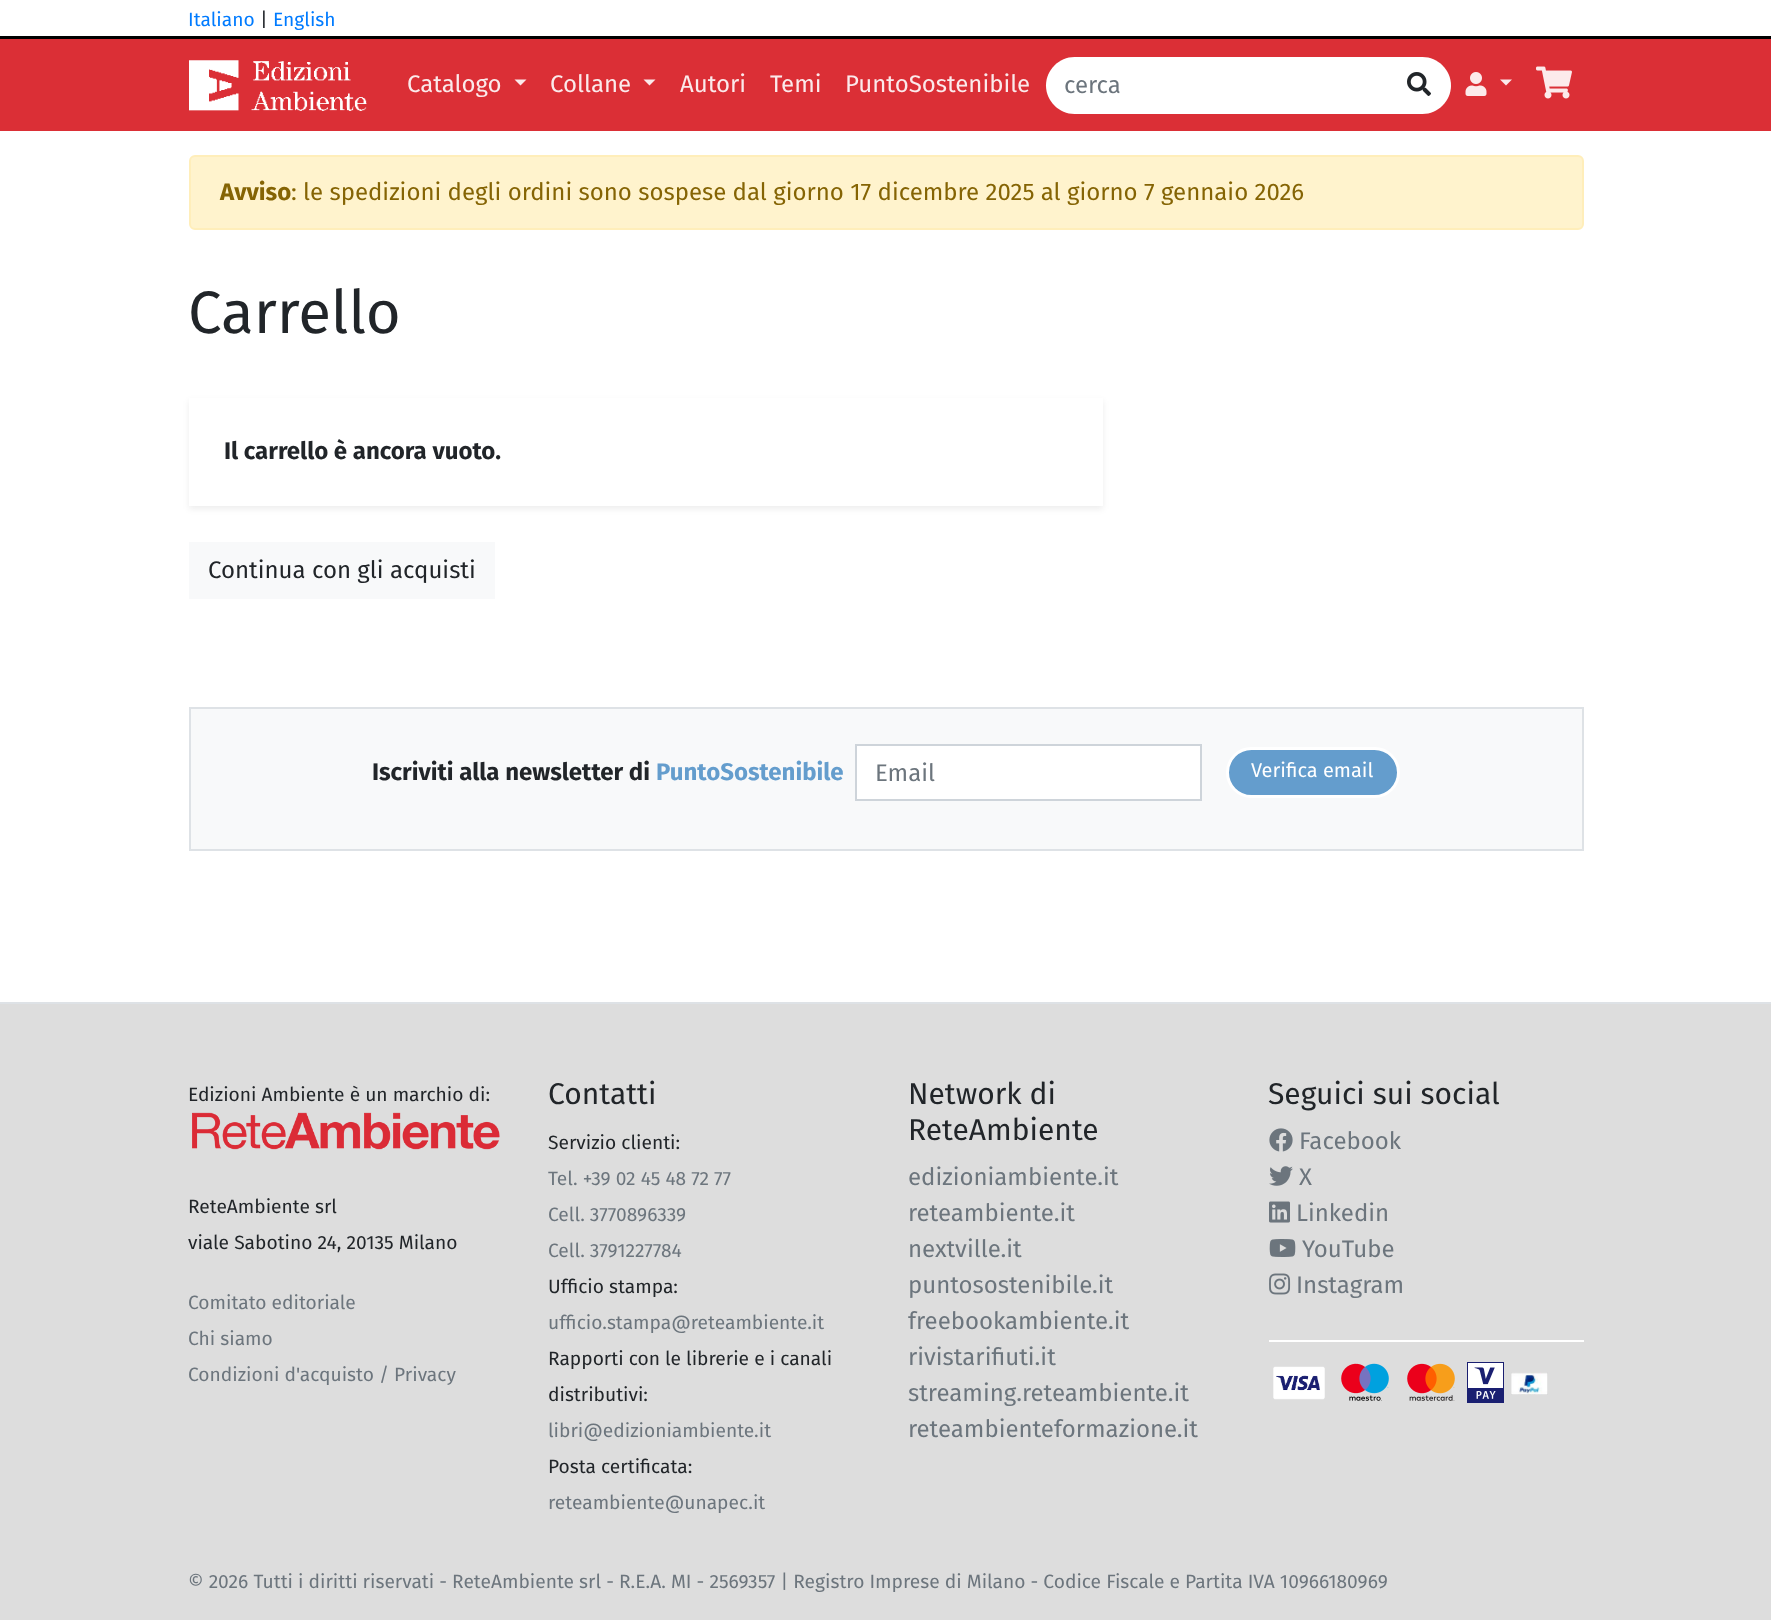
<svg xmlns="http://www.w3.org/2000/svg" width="1771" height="1620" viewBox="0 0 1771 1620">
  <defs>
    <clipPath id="clip1"><path d="M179 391H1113V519H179ZM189 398H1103V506H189Z" clip-rule="evenodd"/></clipPath>
  </defs>
  <rect width="100%" height="100%" fill="rgb(255,255,255)"/>
  <rect x="0" y="36" width="1771" height="3" fill="rgb(0,0,0)"/>
  <text x="188" y="26" font-family="Fira Sans" font-size="19.2" fill="rgb(0,123,255)">Italiano</text>
  <text x="260" y="26" font-family="Fira Sans" font-size="19.2" fill="rgb(33,37,41)">|</text>
  <text x="273" y="26" font-family="Fira Sans" font-size="19.2" fill="rgb(0,123,255)">English</text>
  <rect x="0" y="39" width="1771" height="92" fill="rgb(219,47,54)"/>
  <image x="189" y="60" width="178" height="51" href="pic1.png"/>
  <text x="407" y="92" font-family="Fira Sans" font-size="24" fill="rgb(251,234,235)">Catalogo</text>
  <path d="M514.5 79.5H526.5L520.5 85.5Z" fill="rgb(251,234,235)"/>
  <text x="550" y="92" font-family="Fira Sans" font-size="24" fill="rgb(251,234,235)">Collane</text>
  <path d="M643.5 79.5H655.5L649.5 85.5Z" fill="rgb(251,234,235)"/>
  <g font-family="Fira Sans" font-size="24" fill="rgb(251,234,235)">
    <text x="680" y="92">Autori</text>
    <text x="770" y="92">Temi</text>
    <text x="845" y="92">PuntoSostenibile</text>
  </g>
  <path d="M1074.5 57H1389V114H1074.5C1059 114 1046 101 1046 85.5C1046 70 1059 57 1074.5 57Z" fill="rgb(255,255,255)"/>
  <text x="1064" y="93" font-family="Fira Sans" font-size="24" fill="rgb(108,117,125)">cerca</text>
  <path d="M1388 57H1422.5C1438 57 1451 70 1451 85.5C1451 101 1438 114 1422.5 114H1388Z" fill="rgb(255,255,255)"/>
  <image x="1407" y="72" width="24" height="24" href="pic2.png"/>
  <image x="1465" y="72" width="22" height="24" href="pic3.png"/>
  <path d="M1500 79.5H1512L1506 85.5Z" fill="rgb(251,234,235)"/>
  <image x="1536" y="66" width="36" height="33" href="pic4.png"/>
  <rect x="190" y="156" width="1393" height="73" rx="5" fill="rgb(255,243,205)" stroke="rgb(255,238,186)" stroke-width="2"/>
  <text x="220" y="200" font-family="Fira Sans" font-size="24" font-weight="bold" fill="rgb(133,100,4)">Avviso</text>
  <text x="291" y="200" font-family="Fira Sans" font-size="24" fill="rgb(133,100,4)">: le spedizioni degli ordini sono sospese dal giorno 17 dicembre 2025 al giorno 7 gennaio 2026</text>
  <text x="188" y="333" font-family="Fira Sans" font-size="60" fill="rgb(33,37,41)">Carrello</text>
  <g clip-path="url(#clip1)">
    <rect x="189" y="401" width="914" height="108" fill="rgba(0,0,0,0.07)" filter="blur(3px)"/>
  </g>
  <text x="224" y="459" font-family="Fira Sans" font-size="24" font-weight="bold" fill="rgb(33,37,41)">Il carrello è ancora vuoto.</text>
  <rect x="189" y="542" width="306" height="57" fill="rgb(248,249,250)"/>
  <text x="208" y="578" font-family="Fira Sans" font-size="24" fill="rgb(33,37,41)">Continua con gli acquisti</text>
  <rect x="190" y="708" width="1393" height="142" fill="rgb(248,249,250)" stroke="rgb(222,226,230)" stroke-width="2"/>
  <text x="372" y="780" font-family="Fira Sans" font-size="24" font-weight="bold" fill="rgb(33,37,41)">Iscriviti alla newsletter di</text>
  <text x="656" y="780" font-family="Fira Sans" font-size="24" font-weight="bold" fill="rgb(100,157,205)">PuntoSostenibile</text>
  <rect x="856" y="745" width="345" height="55" fill="rgb(255,255,255)" stroke="rgb(206,212,218)" stroke-width="2"/>
  <text x="875" y="781" font-family="Fira Sans" font-size="24" fill="rgb(108,117,125)">Email</text>
  <rect x="1227.5" y="748.5" width="171" height="48" rx="24" fill="rgb(100,157,205)" stroke="rgb(255,255,255)" stroke-width="3"/>
  <text x="1251" y="777" font-family="Fira Sans" font-size="20" fill="rgb(255,255,255)">Verifica email</text>
  <rect x="0" y="1004" width="1771" height="616" fill="rgb(221,221,221)"/>
  <rect x="0" y="1002" width="1771" height="2" fill="rgb(222,226,230)"/>
  <text x="188" y="1101" font-family="Fira Sans" font-size="19.2" fill="rgb(33,37,41)">Edizioni Ambiente è un marchio di:</text>
  <image x="192" y="1112" width="308" height="38" href="pic5.png"/>
  <g font-family="Fira Sans" font-size="19.2" fill="rgb(33,37,41)">
    <text>
      <tspan x="188" y="1213">ReteAmbiente srl</tspan>
      <tspan x="188" y="1249">viale Sabotino 24, 20135 Milano</tspan>
    </text>
  </g>
  <g font-family="Fira Sans" font-size="19.2" fill="rgb(108,117,125)">
    <text>
      <tspan x="188" y="1309">Comitato editoriale</tspan>
      <tspan x="188" y="1345">Chi siamo</tspan>
      <tspan x="188" y="1381">Condizioni d'acquisto / Privacy</tspan>
    </text>
  </g>
  <text x="548" y="1104" font-family="Fira Sans" font-size="30" fill="rgb(33,37,41)">Contatti</text>
  <text x="548" y="1149" font-family="Fira Sans" font-size="19.2" fill="rgb(33,37,41)">Servizio clienti:</text>
  <g font-family="Fira Sans" font-size="19.2" fill="rgb(108,117,125)">
    <text>
      <tspan x="548" y="1185">Tel. +39 02 45 48 72 77</tspan>
      <tspan x="548" y="1221">Cell. 3770896339</tspan>
      <tspan x="548" y="1257">Cell. 3791227784</tspan>
    </text>
  </g>
  <text x="548" y="1293" font-family="Fira Sans" font-size="19.2" fill="rgb(33,37,41)">Ufficio stampa:</text>
  <text x="548" y="1329" font-family="Fira Sans" font-size="19.2" fill="rgb(108,117,125)">ufficio.stampa@reteambiente.it</text>
  <g font-family="Fira Sans" font-size="19.2" fill="rgb(33,37,41)">
    <text>
      <tspan x="548" y="1365">Rapporti con le librerie e i canali</tspan>
      <tspan x="548" y="1401">distributivi:</tspan>
    </text>
  </g>
  <text x="548" y="1437" font-family="Fira Sans" font-size="19.2" fill="rgb(108,117,125)">libri@edizioniambiente.it</text>
  <text x="548" y="1473" font-family="Fira Sans" font-size="19.2" fill="rgb(33,37,41)">Posta certificata:</text>
  <text x="548" y="1509" font-family="Fira Sans" font-size="19.2" fill="rgb(108,117,125)">reteambiente@unapec.it</text>
  <g font-family="Fira Sans" font-size="30" fill="rgb(33,37,41)">
    <text>
      <tspan x="908" y="1104">Network di</tspan>
      <tspan x="908" y="1140">ReteAmbiente</tspan>
    </text>
  </g>
  <g font-family="Fira Sans" font-size="24" fill="rgb(108,117,125)">
    <text>
      <tspan x="908" y="1185">edizioniambiente.it</tspan>
      <tspan x="908" y="1221">reteambiente.it</tspan>
      <tspan x="908" y="1257">nextville.it</tspan>
      <tspan x="908" y="1293">puntosostenibile.it</tspan>
      <tspan x="908" y="1329">freebookambiente.it</tspan>
      <tspan x="908" y="1365">rivistarifiuti.it</tspan>
      <tspan x="908" y="1401">streaming.reteambiente.it</tspan>
      <tspan x="908" y="1437">reteambienteformazione.it</tspan>
    </text>
  </g>
  <text x="1268" y="1104" font-family="Fira Sans" font-size="30" fill="rgb(33,37,41)">Seguici sui social</text>
  <image x="1269" y="1128" width="24" height="24" href="pic6.png"/>
  <text x="1299" y="1149" font-family="Fira Sans" font-size="24" fill="rgb(108,117,125)">Facebook</text>
  <image x="1269" y="1166" width="24" height="20" href="pic7.png"/>
  <text x="1299" y="1185" font-family="Fira Sans" font-size="24" fill="rgb(108,117,125)">X</text>
  <image x="1269" y="1201" width="21" height="22" href="pic8.png"/>
  <text x="1296" y="1221" font-family="Fira Sans" font-size="24" fill="rgb(108,117,125)">Linkedin</text>
  <image x="1269" y="1239" width="27" height="18" href="pic9.png"/>
  <text x="1302" y="1257" font-family="Fira Sans" font-size="24" fill="rgb(108,117,125)">YouTube</text>
  <image x="1269" y="1273" width="22" height="22" href="pic10.png"/>
  <text x="1296" y="1293" font-family="Fira Sans" font-size="24" fill="rgb(108,117,125)">Instagram</text>
  <rect x="1269" y="1340" width="315" height="2" fill="rgb(255,255,255)"/>
  <image x="1273" y="1366" width="52" height="34" href="pic11.png"/>
  <image x="1341" y="1363" width="48" height="38" href="pic12.png"/>
  <image x="1407" y="1363" width="48" height="38" href="pic13.png"/>
  <image x="1467" y="1362" width="37" height="41" href="pic14.png"/>
  <image x="1511" y="1372" width="37" height="23" href="pic15.png"/>
  <text x="188" y="1588" font-family="Fira Sans" font-size="19.2" fill="rgb(108,117,125)">© 2026 Tutti i diritti riservati - ReteAmbiente srl - R.E.A. MI - 2569357 | Registro Imprese di Milano - Codice Fiscale e Partita IVA 10966180969</text>
</svg>
